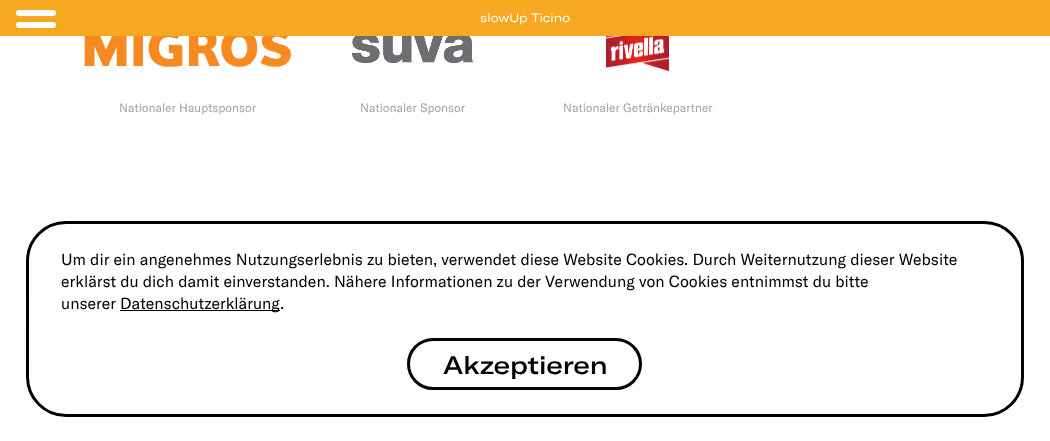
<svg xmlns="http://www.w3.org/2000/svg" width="1050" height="441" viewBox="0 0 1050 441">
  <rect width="100%" height="100%" fill="rgb(255,255,255)"/>
  <rect x="0" y="0" width="1050" height="36" fill="rgb(247,168,35)"/>
  <rect x="16" y="10" width="40" height="6" rx="3" fill="rgb(255,255,255)"/>
  <rect x="16" y="22" width="40" height="6" rx="3" fill="rgb(255,255,255)"/>
  <text x="480" y="22" font-family="'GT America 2'" font-size="12" fill="rgb(255,255,255)">slowUp Ticino</text>
  <image x="84" y="36" width="208" height="31" href="pic1.png"/>
  <text x="119" y="112" font-family="GT America" font-size="12" fill="rgb(163,163,163)">Nationaler Hauptsponsor</text>
  <image x="352" y="36" width="121" height="27" href="pic2.png"/>
  <text x="360" y="112" font-family="GT America" font-size="12" fill="rgb(163,163,163)">Nationaler Sponsor</text>
  <image x="606" y="36" width="63" height="35" href="pic3.png"/>
  <text x="563" y="112" font-family="GT America" font-size="12" fill="rgb(163,163,163)">Nationaler Getränkepartner</text>
  <rect x="27.5" y="222.5" width="995" height="193" rx="38.5" fill="none" stroke="rgb(0,0,0)" stroke-width="3"/>
  <g font-family="GT America" font-size="16" fill="rgb(0,0,0)">
    <text>
      <tspan x="61" y="265">Um dir ein angenehmes Nutzungserlebnis zu bieten, verwendet diese Website Cookies. Durch Weiternutzung dieser Website</tspan>
      <tspan x="61" y="287">erklärst du dich damit einverstanden. Nähere Informationen zu der Verwendung von Cookies entnimmst du bitte</tspan>
      <tspan x="61" y="309">unserer</tspan>
    </text>
  </g>
  <rect x="120" y="310" width="160" height="1" fill="rgb(0,0,0)"/>
  <text x="120" y="309" font-family="GT America" font-size="16" fill="rgb(0,0,0)">Datenschutzerklärung.</text>
  <rect x="408.5" y="339.5" width="232" height="49" rx="24.5" fill="none" stroke="rgb(0,0,0)" stroke-width="3"/>
  <text x="443" y="374" font-family="GT America" font-size="25" font-weight="500" fill="rgb(0,0,0)">Akzeptieren</text>
</svg>
